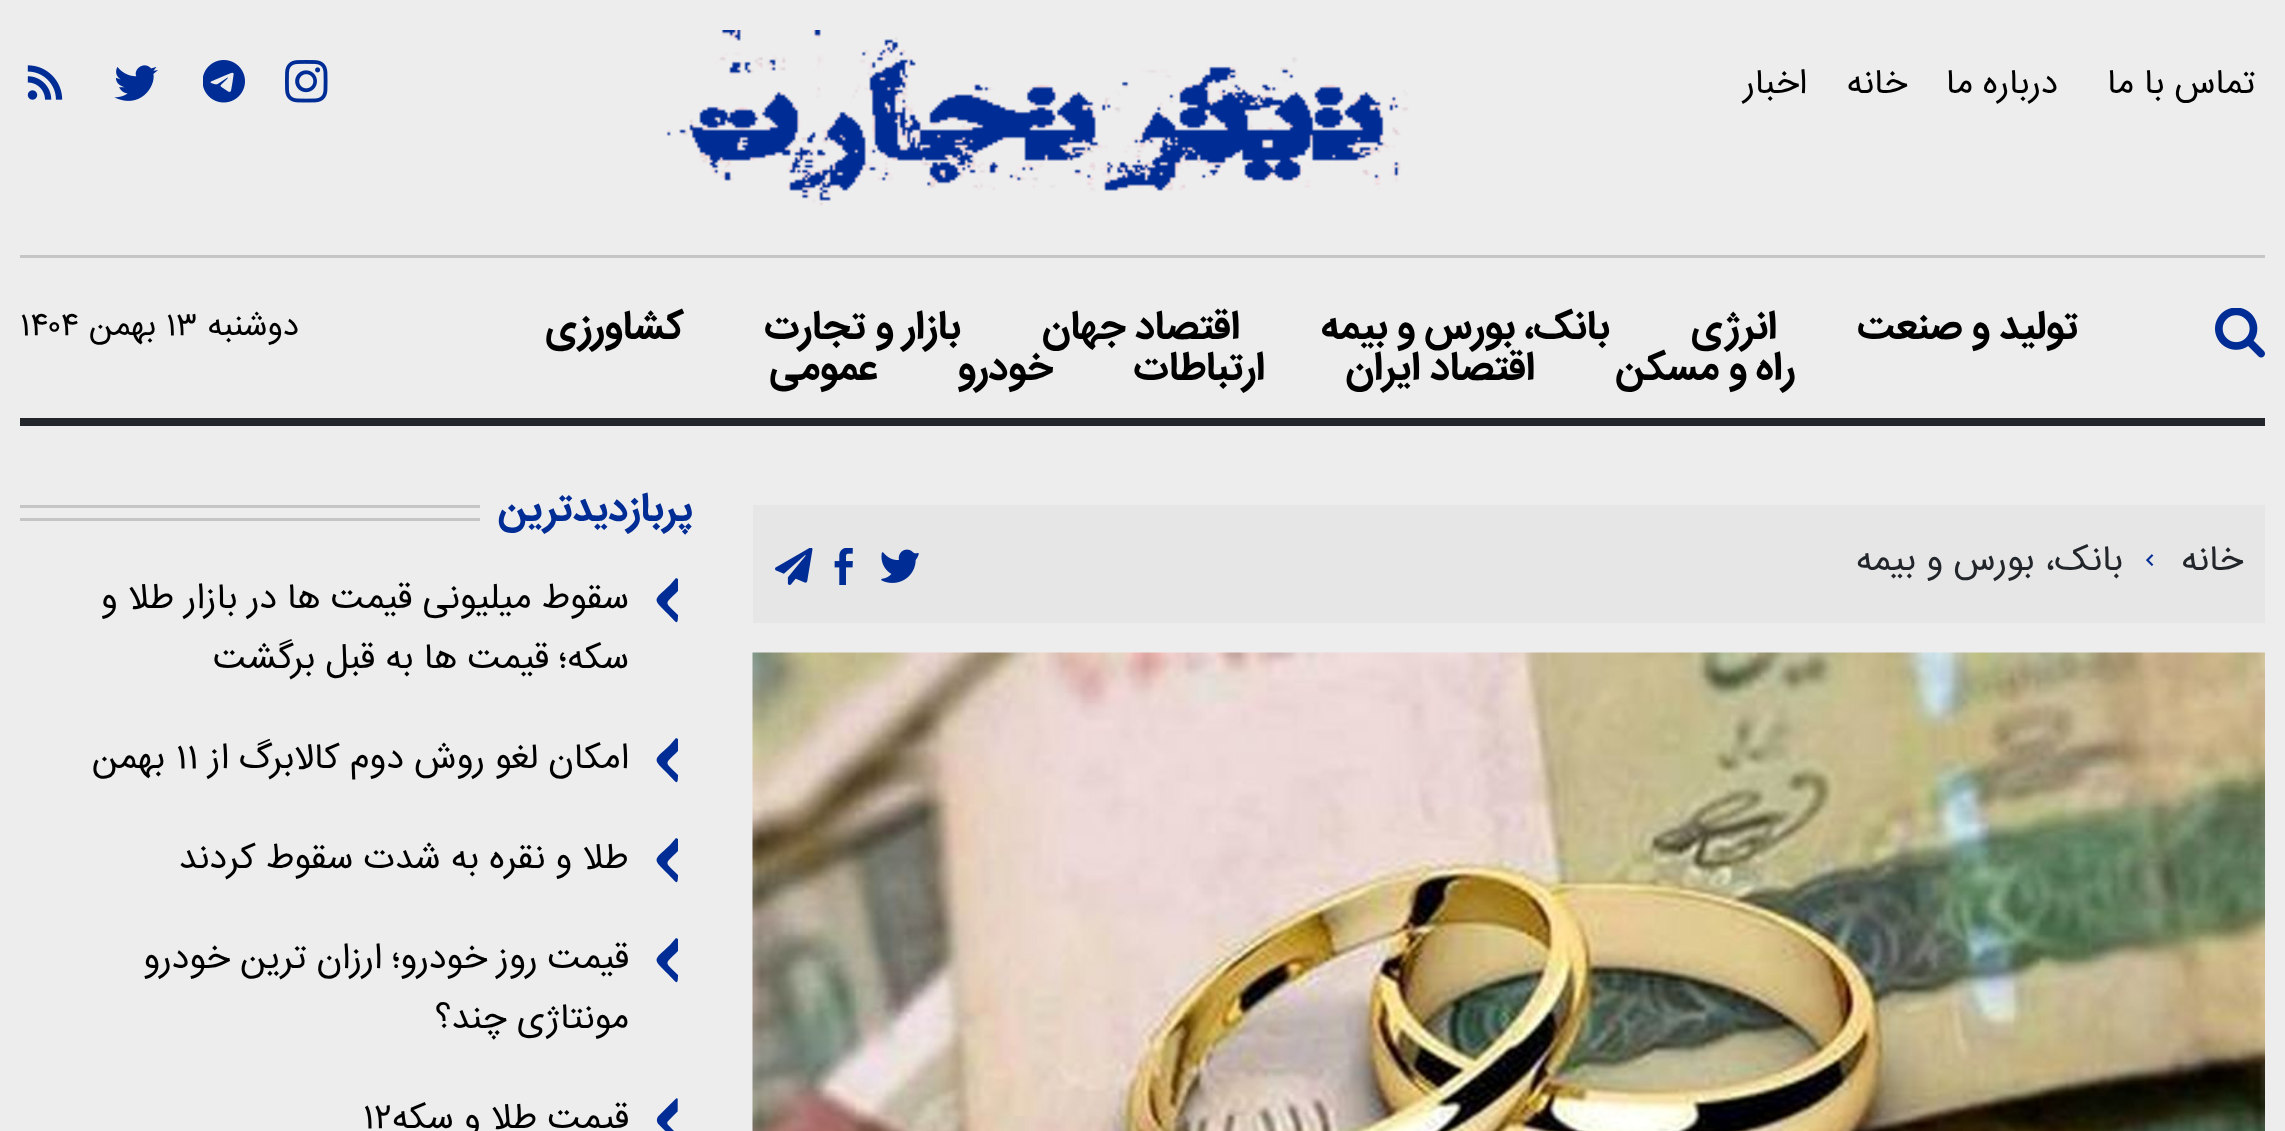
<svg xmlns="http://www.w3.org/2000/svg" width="2285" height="1131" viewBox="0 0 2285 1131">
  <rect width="100%" height="100%" fill="rgb(238,237,238)"/>
  <rect x="20" y="255" width="2245" height="3" fill="rgb(197,197,197)"/>
  <g font-family="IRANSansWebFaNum" font-size="35" direction="rtl" fill="rgb(0,0,0)">
    <text x="2255" y="93">تماس با ما</text>
    <text x="2058" y="93">درباره ما</text>
    <text x="1907" y="93">خانه</text>
    <text x="1807" y="93">اخبار</text>
  </g>
  <image x="666" y="30" width="743" height="176" href="pic1.png"/>
  <image x="285" y="60" width="43" height="43" href="pic2.png"/>
  <image x="203" y="60" width="42" height="43" href="pic3.png"/>
  <image x="114" y="65" width="44" height="36" href="pic4.png"/>
  <image x="27" y="65" width="36" height="35" href="pic5.png"/>
  <rect x="20" y="418" width="2245" height="8" fill="rgb(34,38,43)"/>
  <image x="2215" y="308" width="50" height="50" href="pic6.png"/>
  <g font-family="IRANSansWebFaNum" font-size="40" font-weight="bold" direction="rtl" fill="rgb(0,0,0)">
    <text x="2078" y="338">تولید و صنعت</text>
    <text x="1777" y="338">انرژی</text>
    <text x="1610" y="338">بانک، بورس و</text>
    <text x="1388" y="338">بیمه</text>
    <text x="1240" y="338">اقتصاد جهان</text>
    <text x="961" y="338">بازار و تجارت</text>
    <text x="684" y="338">کشاورزی</text>
    <text x="1795" y="379">راه و مسکن</text>
    <text x="1535" y="379">اقتصاد ایران</text>
    <text x="1265" y="379">ارتباطات</text>
    <text x="1053" y="379">خودرو</text>
    <text x="877" y="379">عمومی</text>
  </g>
  <text x="299" y="335" font-family="IRANSansWebFaNum" font-size="33" direction="rtl" fill="rgb(0,0,0)">دوشنبه</text>
  <text x="166" y="335" font-family="IRANSansWebFaNum" font-size="33" fill="rgb(0,0,0)">۱۳</text>
  <text x="156" y="335" font-family="IRANSansWebFaNum" font-size="33" direction="rtl" fill="rgb(0,0,0)">بهمن</text>
  <text x="20" y="335" font-family="IRANSansWebFaNum" font-size="33" fill="rgb(0,0,0)">۱۴۰۴</text>
  <rect x="753" y="505" width="1512" height="118" fill="rgb(230,230,230)"/>
  <text x="2243" y="570" font-family="IRANSansWebFaNum" font-size="36" direction="rtl" fill="rgb(34,38,43)">خانه</text>
  <image x="2146" y="554" width="8" height="12" href="pic7.png"/>
  <g font-family="IRANSansWebFaNum" font-size="36" direction="rtl" fill="rgb(34,38,43)">
    <text x="2123" y="570">بانک، بورس و</text>
    <text x="1916" y="570">بیمه</text>
  </g>
  <image x="881" y="549" width="38" height="34" href="pic8.png"/>
  <image x="834" y="548" width="19" height="37" href="pic9.png"/>
  <image x="775" y="548" width="38" height="37" href="pic10.png"/>
  <image x="752" y="652" width="1513" height="479" href="pic11.png"/>
  <text x="693" y="520" font-family="IRANSansWebFaNum" font-size="40" font-weight="bold" direction="rtl" fill="rgb(0,44,149)">پربازدیدترین</text>
  <rect x="20" y="505" width="460" height="3" fill="rgb(197,197,197)"/>
  <rect x="20" y="518" width="460" height="3" fill="rgb(197,197,197)"/>
  <path d="M670 585C653 601 652 598 668 614C676 622 678 627 678 615C664 601 664 605 678 591V579L676 578Z" fill="rgb(0,44,149)"/>
  <g font-family="IRANSansWebFaNum" font-size="36" direction="rtl" fill="rgb(0,0,0)">
    <text>
      <tspan x="629" y="608">سقوط میلیونی قیمت ها در بازار طلا و</tspan>
      <tspan x="629" y="668">سکه؛ قیمت ها به قبل برگشت</tspan>
    </text>
  </g>
  <path d="M670 745C653 761 652 758 668 774C676 782 678 787 678 775C664 761 664 765 678 751V739L676 738Z" fill="rgb(0,44,149)"/>
  <text x="629" y="768" font-family="IRANSansWebFaNum" font-size="36" direction="rtl" fill="rgb(0,0,0)">امکان لغو روش دوم کالابرگ از</text>
  <text x="176" y="768" font-family="IRANSansWebFaNum" font-size="36" fill="rgb(0,0,0)">۱۱</text>
  <text x="165" y="768" font-family="IRANSansWebFaNum" font-size="36" direction="rtl" fill="rgb(0,0,0)">بهمن</text>
  <path d="M670 845C653 861 652 858 668 874C676 882 678 887 678 875C664 861 664 865 678 851V839L676 838Z" fill="rgb(0,44,149)"/>
  <text x="629" y="868" font-family="IRANSansWebFaNum" font-size="36" direction="rtl" fill="rgb(0,0,0)">طلا و نقره به شدت سقوط کردند</text>
  <path d="M670 945C653 961 652 958 668 974C676 982 678 987 678 975C664 961 664 965 678 951V939L676 938Z" fill="rgb(0,44,149)"/>
  <g font-family="IRANSansWebFaNum" font-size="36" direction="rtl" fill="rgb(0,0,0)">
    <text>
      <tspan x="629" y="968">قیمت روز خودرو؛ ارزان ترین خودرو</tspan>
      <tspan x="629" y="1028">مونتاژی چند؟</tspan>
    </text>
  </g>
  <image x="656" y="1098" width="22" height="33" href="pic12.png"/>
  <text x="629" y="1128" font-family="IRANSansWebFaNum" font-size="36" direction="rtl" fill="rgb(0,0,0)">قیمت طلا و سکه</text>
  <text x="363" y="1128" font-family="IRANSansWebFaNum" font-size="36" fill="rgb(0,0,0)">۱۲</text>
</svg>
